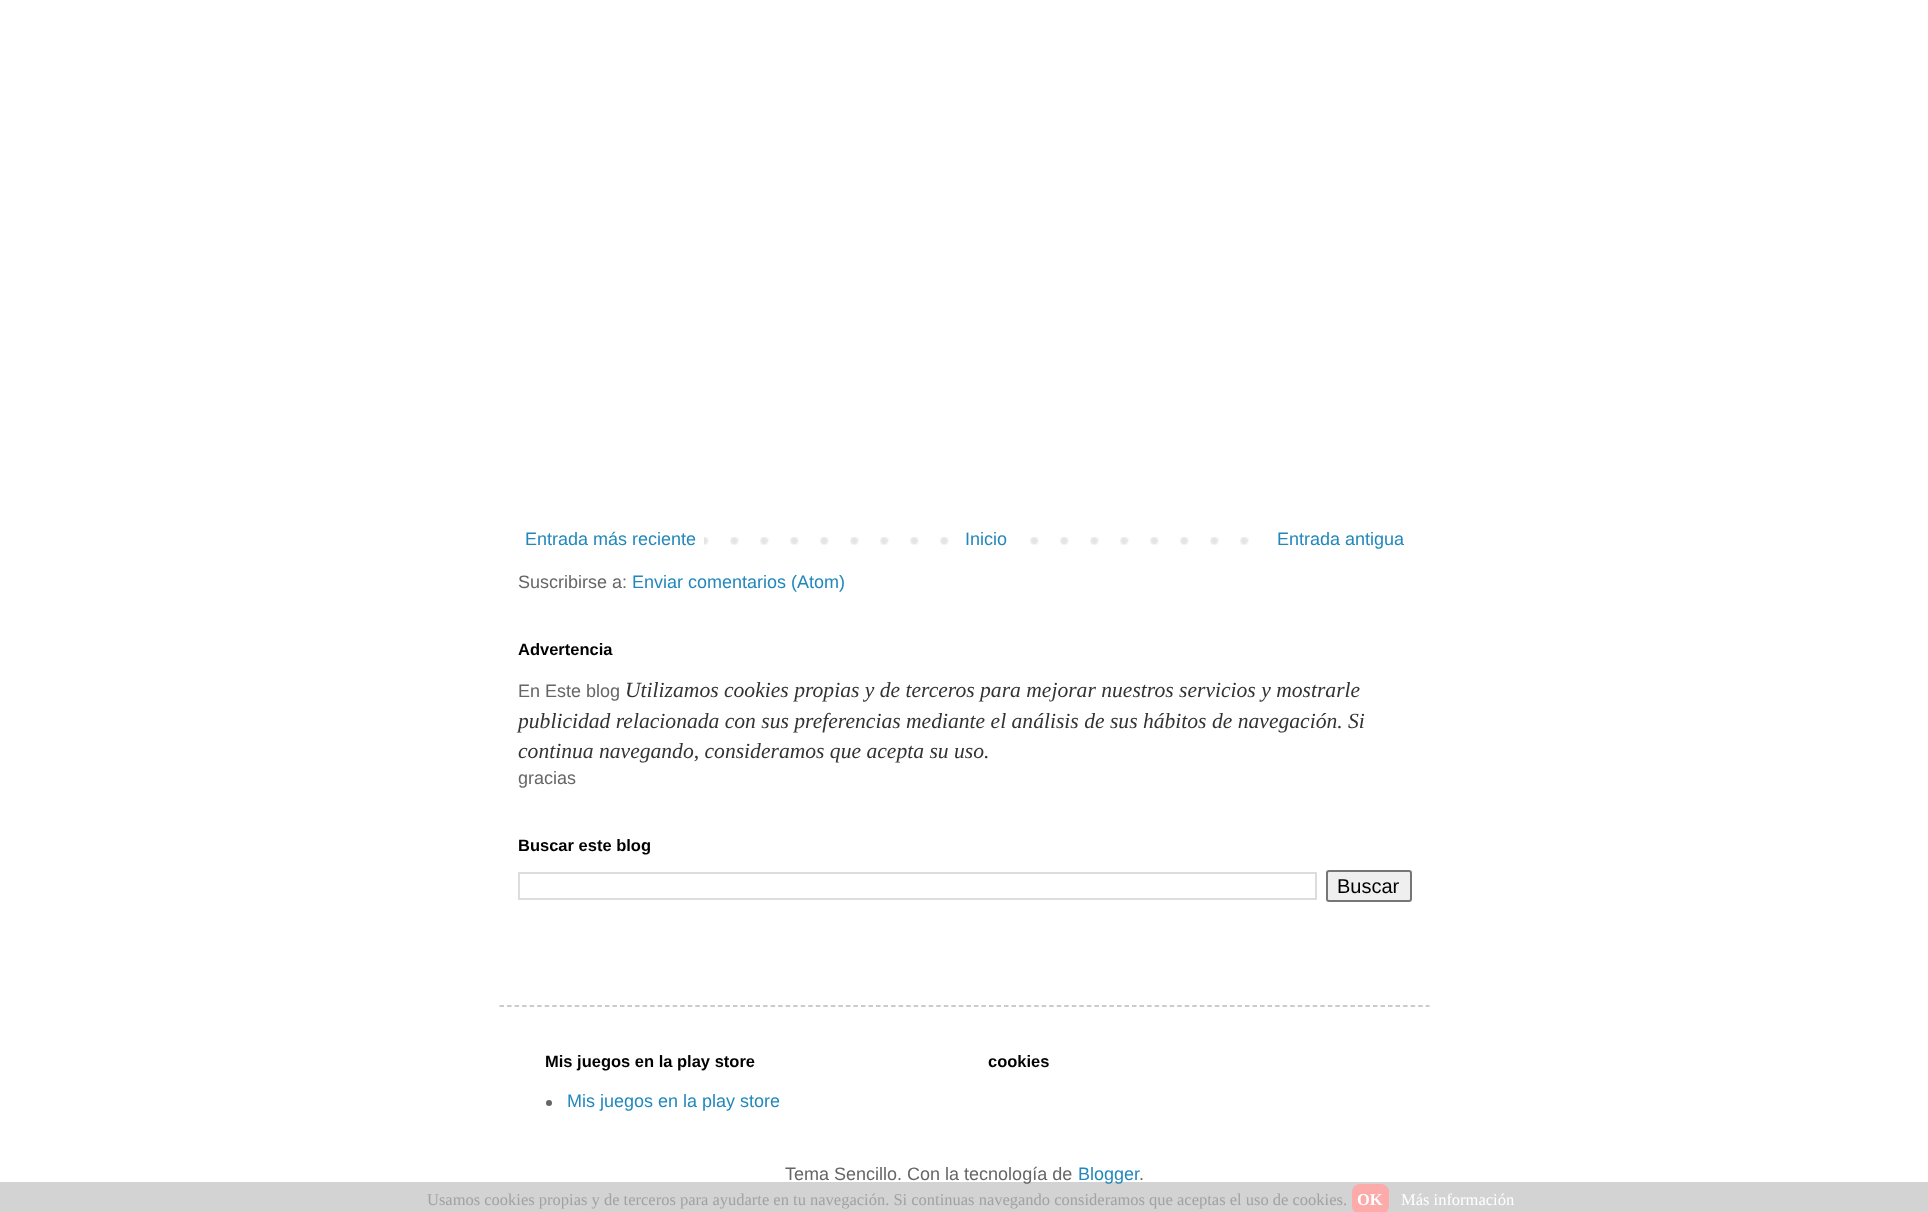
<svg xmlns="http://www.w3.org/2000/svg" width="1928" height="1212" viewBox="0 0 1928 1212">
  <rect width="100%" height="100%" fill="rgb(255,255,255)"/>
  <image x="704" y="537" width="545" height="8" href="pic1.png"/>
  <text x="525" y="545" font-family="Liberation Sans" font-size="18" fill="rgb(34,136,187)">Entrada más reciente</text>
  <rect x="970" y="537" width="39" height="8" fill="rgb(255,255,255)"/>
  <g font-family="Liberation Sans" font-size="18" fill="rgb(34,136,187)">
    <text x="965" y="545">Inicio</text>
    <text x="1277" y="545">Entrada antigua</text>
  </g>
  <text x="518" y="588" font-family="Liberation Sans" font-size="18" fill="rgb(102,102,102)">Suscribirse a:</text>
  <text x="632" y="588" font-family="Liberation Sans" font-size="18" fill="rgb(34,136,187)">Enviar comentarios (Atom)</text>
  <text x="518" y="655" font-family="Liberation Sans" font-size="16.5" font-weight="bold" fill="rgb(0,0,0)">Advertencia</text>
  <text x="518" y="697" font-family="Liberation Sans" font-size="18" fill="rgb(102,102,102)">En Este blog</text>
  <g font-family="Liberation Serif" font-size="21.6" font-style="italic" fill="rgb(51,51,51)">
    <text x="625" y="697">Utilizamos cookies propias y de terceros para mejorar nuestros servicios y mostrarle</text>
    <text>
      <tspan x="518" y="728">publicidad relacionada con sus preferencias mediante el análisis de sus hábitos de navegación. Si</tspan>
      <tspan x="518" y="758">continua navegando, consideramos que acepta su uso.</tspan>
    </text>
  </g>
  <text x="518" y="784" font-family="Liberation Sans" font-size="18" fill="rgb(102,102,102)">gracias</text>
  <text x="518" y="851" font-family="Liberation Sans" font-size="16.5" font-weight="bold" fill="rgb(0,0,0)">Buscar este blog</text>
  <rect x="519" y="873" width="797" height="26" fill="none" stroke="rgb(221,221,221)" stroke-width="2"/>
  <rect x="1327" y="871" width="84" height="30" rx="2" fill="rgb(239,239,239)" stroke="rgb(118,118,118)" stroke-width="2"/>
  <text x="1337" y="893" font-family="Liberation Sans" font-size="20" fill="rgb(0,0,0)">Buscar</text>
  <path d="M499.5 1006H1429.5" fill="none" stroke="rgb(187,187,187)" stroke-width="1.5" stroke-dasharray="4.5 3.03"/>
  <text x="988" y="1067" font-family="Liberation Sans" font-size="16.5" font-weight="bold" fill="rgb(0,0,0)">cookies</text>
  <rect x="0" y="1182" width="1928" height="30" fill="rgb(211,211,211)"/>
  <text x="427" y="1205" font-family="Liberation Serif" font-size="16.5" fill="rgb(162,162,162)">Usamos cookies propias y de terceros para ayudarte en tu navegación. Si continuas navegando consideramos que aceptas el uso de cookies.</text>
  <rect x="1352" y="1184" width="37" height="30" rx="8" fill="rgb(252,170,170)"/>
  <text x="1357" y="1205" font-family="Liberation Serif" font-size="16.5" font-weight="bold" fill="rgb(255,255,255)">OK</text>
  <text x="1401" y="1205" font-family="Liberation Serif" font-size="16.5" fill="rgb(255,255,255)">Más información</text>
  <text x="545" y="1067" font-family="Liberation Sans" font-size="16.5" font-weight="bold" fill="rgb(0,0,0)">Mis juegos en la play store</text>
  <circle cx="549" cy="1103" r="3" fill="rgb(102,102,102)"/>
  <text x="567" y="1107" font-family="Liberation Sans" font-size="18" fill="rgb(34,136,187)">Mis juegos en la play store</text>
  <text x="785" y="1180" font-family="Liberation Sans" font-size="18" fill="rgb(102,102,102)">Tema Sencillo. Con la tecnología de</text>
  <text x="1078" y="1180" font-family="Liberation Sans" font-size="18" fill="rgb(34,136,187)">Blogger</text>
  <text x="1139" y="1180" font-family="Liberation Sans" font-size="18" fill="rgb(102,102,102)">.</text>
</svg>
